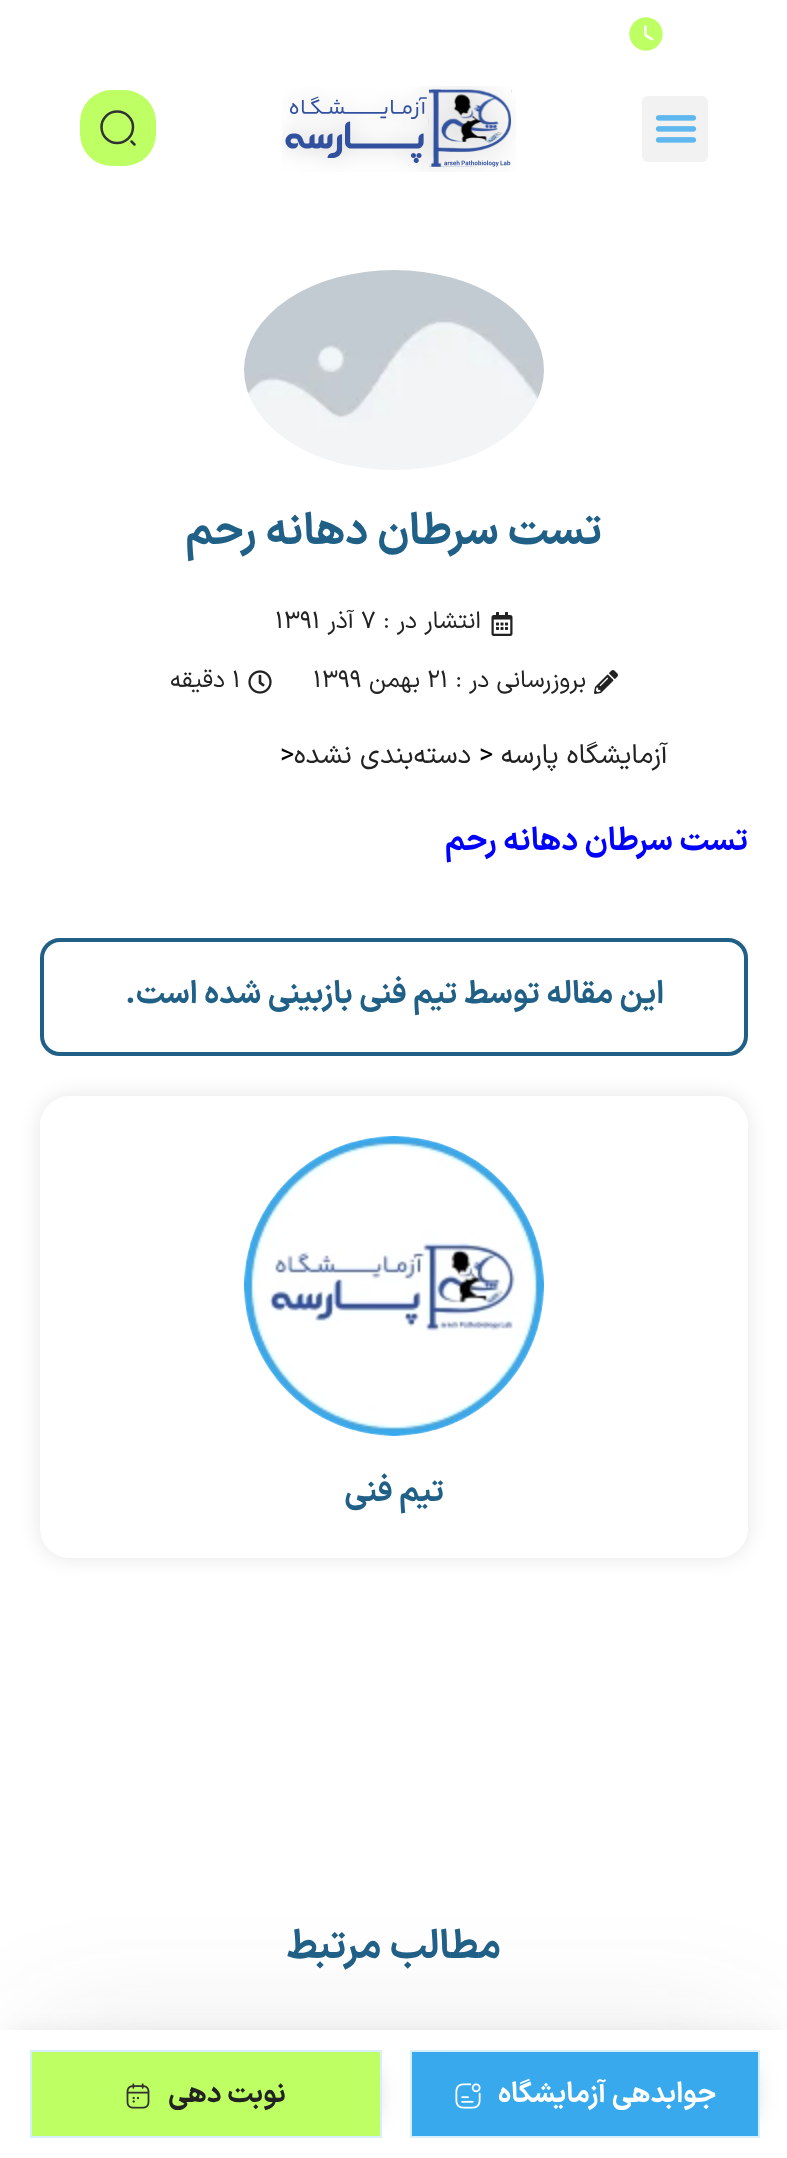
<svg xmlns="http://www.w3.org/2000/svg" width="787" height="2158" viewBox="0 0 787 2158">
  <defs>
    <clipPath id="clip1"><path d="M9 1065H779V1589H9ZM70 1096H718C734.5 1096 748 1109.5 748 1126V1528C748 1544.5 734.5 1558 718 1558H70C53.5 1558 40 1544.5 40 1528V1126C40 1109.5 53.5 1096 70 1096Z" clip-rule="evenodd"/></clipPath>
  </defs>
  <rect width="100%" height="100%" fill="rgb(255,255,255)"/>
  <image x="629" y="17" width="34" height="34" href="pic1.png"/>
  <rect x="642" y="96" width="66" height="66" rx="6" fill="rgb(242,242,242)"/>
  <image x="655" y="115" width="42" height="28" href="pic2.png"/>
  <image x="282" y="86" width="234" height="86" href="pic3.png"/>
  <rect x="80" y="90" width="76" height="76" rx="32" fill="rgb(190,255,99)"/>
  <path d="M117 143C126 143 133 136 133 127C133 118.5 126 111.5 117 111.5C108.5 111.5 101.5 118.5 101.5 127C101.5 136 108.5 143 117 143ZM134.5 144.5L131.5 141.5" fill="none" stroke="rgb(50,50,50)" stroke-width="2.5" stroke-linecap="round" stroke-linejoin="round"/>
  <image x="244" y="270" width="300" height="200" href="pic4.png"/>
  <text x="602" y="544" font-family="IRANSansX" font-size="44" font-weight="bold" direction="rtl" fill="rgb(32,96,135)">تست سرطان دهانه رحم</text>
  <image x="491" y="612" width="22" height="24" href="pic5.png"/>
  <text x="481" y="628" font-family="IRANSansX" font-size="24" direction="rtl" fill="rgb(34,34,34)">انتشار در :</text>
  <text x="361" y="628" font-family="IRANSansX" font-size="24" fill="rgb(34,34,34)">۷</text>
  <text x="354" y="628" font-family="IRANSansX" font-size="24" direction="rtl" fill="rgb(34,34,34)">آذر</text>
  <text x="275" y="628" font-family="IRANSansX" font-size="24" fill="rgb(34,34,34)">۱۳۹۱</text>
  <image x="594" y="670" width="24" height="24" href="pic6.png"/>
  <text x="586" y="687" font-family="IRANSansX" font-size="24" direction="rtl" fill="rgb(34,34,34)">بروزرسانی در :</text>
  <text x="427" y="687" font-family="IRANSansX" font-size="24" fill="rgb(34,34,34)">۲۱</text>
  <text x="420" y="687" font-family="IRANSansX" font-size="24" direction="rtl" fill="rgb(34,34,34)">بهمن</text>
  <text x="313" y="687" font-family="IRANSansX" font-size="24" fill="rgb(34,34,34)">۱۳۹۹</text>
  <image x="248" y="670" width="24" height="24" href="pic7.png"/>
  <text x="232" y="687" font-family="IRANSansX" font-size="24" fill="rgb(34,34,34)">۱</text>
  <text x="225" y="687" font-family="IRANSansX" font-size="24" direction="rtl" fill="rgb(34,34,34)">دقیقه</text>
  <text x="668" y="763" font-family="IRANSansX" font-size="27.25" direction="rtl" fill="rgb(34,34,34)">آزمایشگاه پارسه</text>
  <text x="479" y="763" font-family="IRANSansX" font-size="27.25" fill="rgb(0,0,0)">&gt;</text>
  <text x="471" y="763" font-family="IRANSansX" font-size="27.25" direction="rtl" fill="rgb(34,34,34)">دسته‌بندی نشده</text>
  <text x="280" y="763" font-family="IRANSansX" font-size="27.25" fill="rgb(0,0,0)">&gt;</text>
  <text x="748" y="850" font-family="IRANSansX" font-size="32" font-weight="bold" direction="rtl" fill="rgb(0,0,255)">تست سرطان دهانه رحم</text>
  <rect x="42" y="940" width="704" height="114" rx="18" fill="none" stroke="rgb(32,96,135)" stroke-width="4"/>
  <text x="664" y="1003" font-family="IRANSansX" font-size="31.5" font-weight="bold" direction="rtl" fill="rgb(32,96,135)">این مقاله توسط تیم فنی بازبینی شده است.</text>
  <g clip-path="url(#clip1)">
    <rect x="40" y="1096" width="708" height="462" rx="30" fill="rgba(0,0,0,0.1)" filter="blur(10px)"/>
  </g>
  <image x="244" y="1136" width="300" height="300" href="pic8.png"/>
  <text x="444" y="1501" font-family="IRANSansX" font-size="32" font-weight="bold" direction="rtl" fill="rgb(32,96,135)">تیم فنی</text>
  <rect x="40" y="2028" width="708" height="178" rx="20" fill="rgba(68,62,56,0.1)" filter="blur(60px)"/>
  <text x="501" y="1958" font-family="IRANSansX" font-size="40" font-weight="bold" direction="rtl" fill="rgb(32,96,135)">مطالب مرتبط</text>
  <rect x="10" y="2030" width="768" height="108" fill="rgba(0,0,0,0.06)" filter="blur(10px)"/>
  <rect x="0" y="2030" width="787" height="128" fill="rgb(255,255,255)"/>
  <rect x="446" y="2070" width="310" height="48" fill="rgba(113,113,113,0.25)" filter="blur(10px)"/>
  <rect x="411" y="2051" width="348" height="86" fill="rgb(56,169,237)" stroke="rgb(215,238,251)" stroke-width="2"/>
  <text x="716" y="2102" font-family="IRANSansX" font-size="28" font-weight="bold" direction="rtl" fill="rgb(255,255,255)">جوابدهی آزمایشگاه</text>
  <image x="455" y="2083" width="26" height="26" href="pic9.png"/>
  <rect x="66" y="2070" width="312" height="48" fill="rgba(113,113,113,0.25)" filter="blur(10px)"/>
  <rect x="31" y="2051" width="350" height="86" fill="rgb(190,255,99)" stroke="rgb(215,238,251)" stroke-width="2"/>
  <text x="286" y="2102" font-family="IRANSansX" font-size="28" font-weight="bold" direction="rtl" fill="rgb(34,34,34)">نوبت دهی</text>
  <image x="126" y="2083" width="24" height="26" href="pic10.png"/>
</svg>
